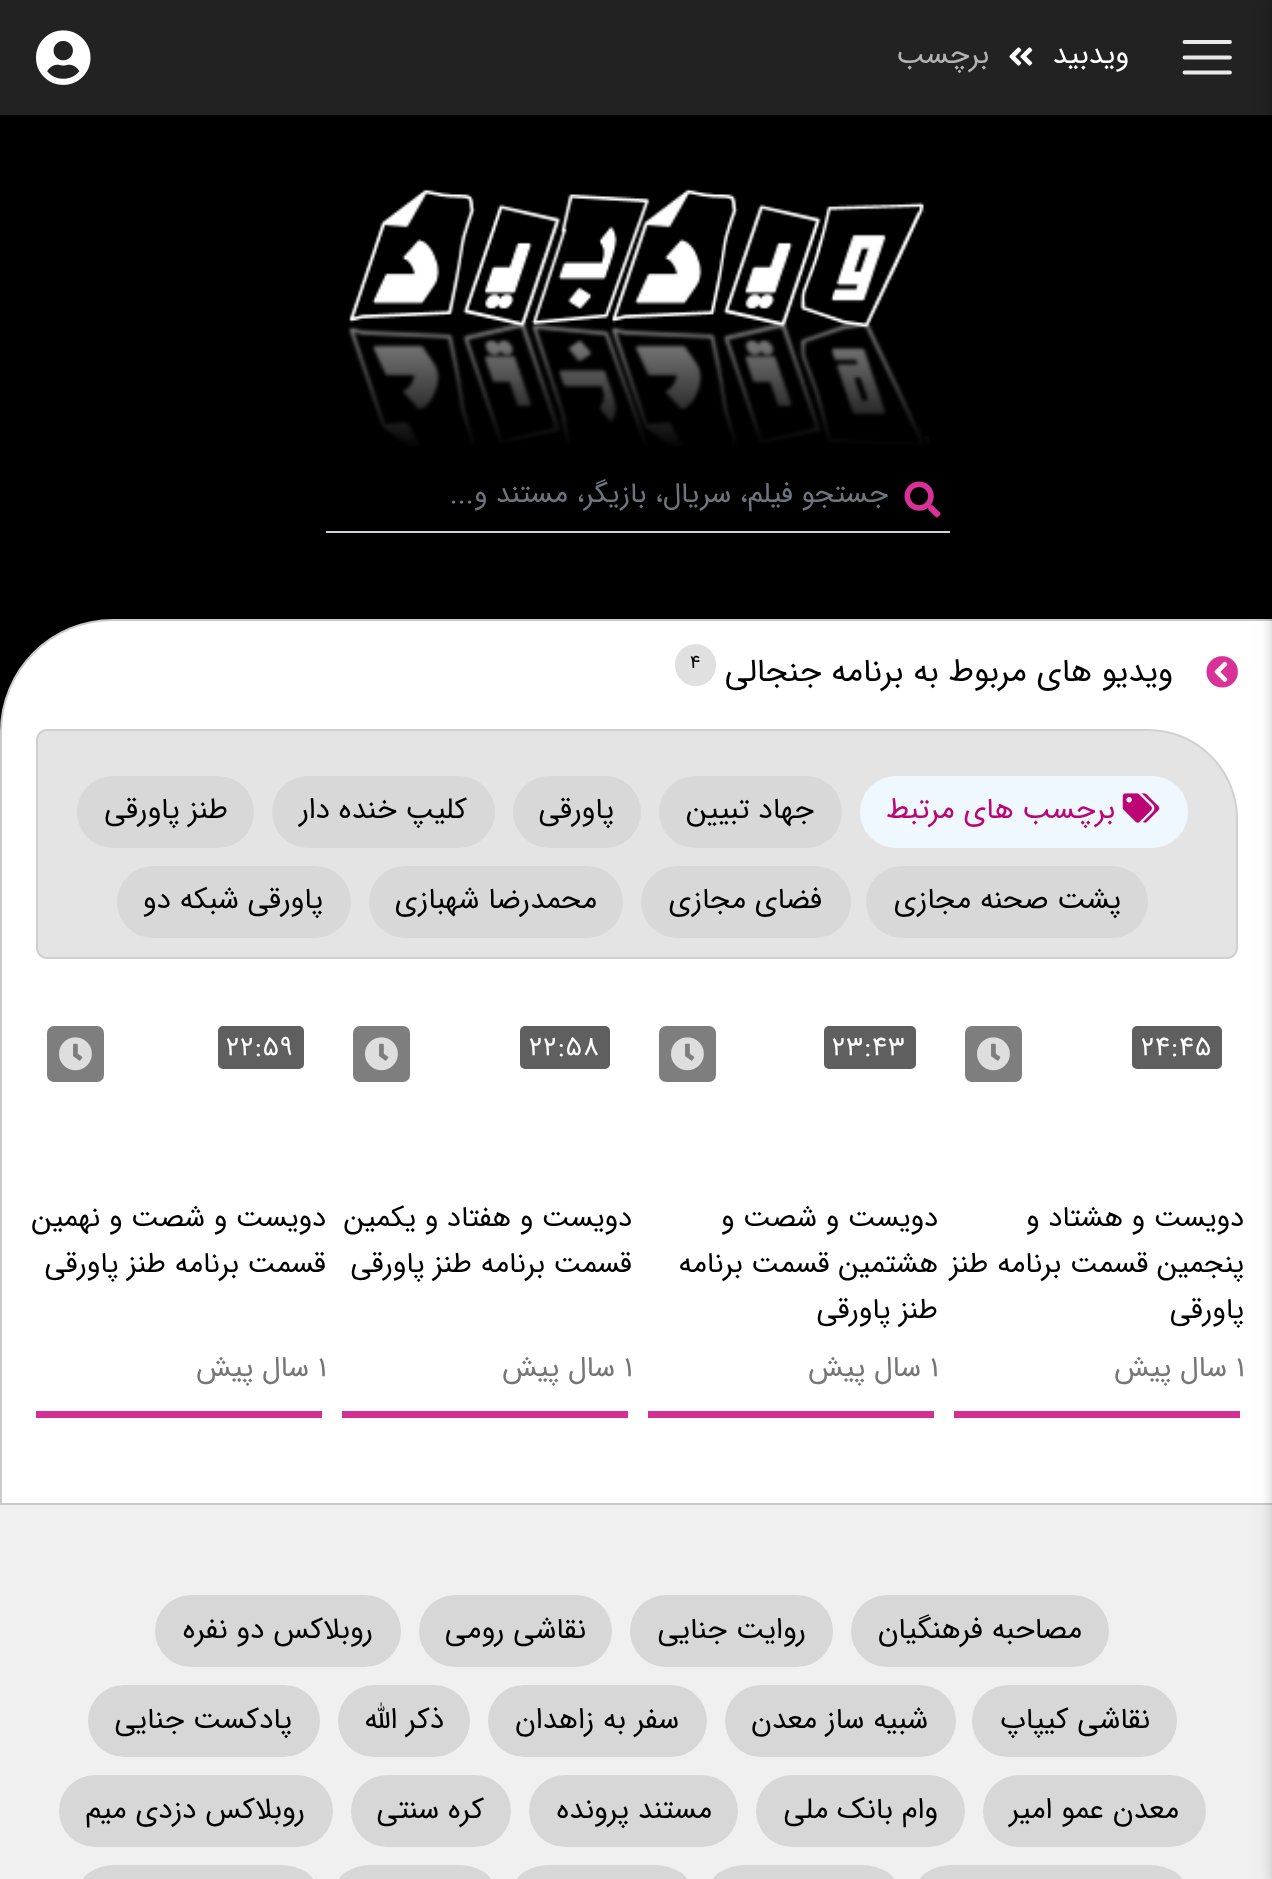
<svg xmlns="http://www.w3.org/2000/svg" width="1272" height="1879" viewBox="0 0 1272 1879">
  <rect width="100%" height="100%" fill="rgb(240,240,240)"/>
  <rect x="0" y="115" width="1272" height="617" fill="rgb(0,0,0)"/>
  <rect x="0" y="5" width="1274" height="114" fill="rgba(0,0,0,0.07)" filter="blur(4.5px)"/>
  <rect x="0" y="0" width="1272" height="115" fill="rgb(34,34,34)"/>
  <path d="M1184.5 42H1230M1184.5 57.5H1230M1184.5 72.5H1230" fill="none" stroke="rgb(233,233,233)" stroke-width="3.8" stroke-linecap="round"/>
  <text x="1129" y="63" font-family="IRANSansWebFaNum" font-size="29.25" direction="rtl" fill="rgb(255,255,255)">ویدبید</text>
  <image x="1009" y="47" width="24" height="19" href="pic1.png"/>
  <text x="989" y="63" font-family="IRANSansWebFaNum" font-size="29.25" direction="rtl" fill="rgb(178,178,178)">برچسب</text>
  <image x="36" y="30" width="55" height="55" href="pic2.png"/>
  <image x="347" y="188" width="582" height="258" href="pic3.png"/>
  <image x="904" y="481" width="37" height="37" href="pic4.png"/>
  <rect x="326" y="531" width="624" height="2" fill="rgb(206,212,218)"/>
  <text x="888" y="502" font-family="IRANSansWebFaNum" font-size="28.4" direction="rtl" fill="rgb(108,117,125)">جستجو فیلم، سریال، بازیگر، مستند و...</text>
  <path d="M113 620H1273V1504H1V732C1 670 51 620 113 620Z" fill="rgb(255,255,255)" stroke="rgb(202,202,202)" stroke-width="2"/>
  <rect x="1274" y="5" width="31" height="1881" fill="rgba(0,0,0,0.12)" filter="blur(11px)"/>
  <rect x="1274" y="5" width="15" height="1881" fill="rgba(0,0,0,0.16)" filter="blur(5.5px)"/>
  <image x="1206" y="656" width="32" height="32" href="pic5.png"/>
  <text x="1173" y="681" font-family="IRANSansWebFaNum" font-size="32.4" direction="rtl" fill="rgb(0,0,0)">ویديو های مربوط به برنامه جنجالی</text>
  <rect x="675" y="644" width="41" height="42" rx="20.5" fill="rgb(224,224,224)"/>
  <text x="690" y="668" font-family="IRANSansWebFaNum" font-size="19" fill="rgb(0,0,0)">4</text>
  <path d="M47 730H1148C1197 730 1237 770 1237 819V948C1237 953.5 1232.5 958 1227 958H47C41.5 958 37 953.5 37 948V740C37 734.5 41.5 730 47 730Z" fill="rgb(228,228,228)" stroke="rgb(208,208,208)" stroke-width="2"/>
  <rect x="860" y="776" width="328" height="72" rx="36" fill="rgb(240,248,255)"/>
  <image x="1122" y="793" width="38" height="30" href="pic6.png"/>
  <text x="1115" y="818" font-family="IRANSansWebFaNum" font-size="29.25" direction="rtl" fill="rgb(189,4,116)">برچسب های مرتبط</text>
  <rect x="659" y="776" width="183" height="72" rx="36" fill="rgb(216,216,216)"/>
  <text x="814" y="818" font-family="IRANSansWebFaNum" font-size="29.25" direction="rtl" fill="rgb(0,0,0)">جهاد تبیین</text>
  <rect x="513" y="776" width="128" height="72" rx="36" fill="rgb(216,216,216)"/>
  <text x="614" y="818" font-family="IRANSansWebFaNum" font-size="29.25" direction="rtl" fill="rgb(0,0,0)">پاورقی</text>
  <rect x="272" y="776" width="223" height="72" rx="36" fill="rgb(216,216,216)"/>
  <text x="467" y="818" font-family="IRANSansWebFaNum" font-size="29.25" direction="rtl" fill="rgb(0,0,0)">کلیپ خنده دار</text>
  <rect x="77" y="776" width="177" height="72" rx="36" fill="rgb(216,216,216)"/>
  <text x="228" y="818" font-family="IRANSansWebFaNum" font-size="29.25" direction="rtl" fill="rgb(0,0,0)">طنز پاورقی</text>
  <rect x="866" y="866" width="282" height="72" rx="36" fill="rgb(216,216,216)"/>
  <text x="1121" y="908" font-family="IRANSansWebFaNum" font-size="29.25" direction="rtl" fill="rgb(0,0,0)">پشت صحنه مجازی</text>
  <rect x="641" y="866" width="210" height="72" rx="36" fill="rgb(216,216,216)"/>
  <text x="822" y="908" font-family="IRANSansWebFaNum" font-size="29.25" direction="rtl" fill="rgb(0,0,0)">فضای مجازی</text>
  <rect x="369" y="866" width="254" height="72" rx="36" fill="rgb(216,216,216)"/>
  <text x="597" y="908" font-family="IRANSansWebFaNum" font-size="29.25" direction="rtl" fill="rgb(0,0,0)">محمدرضا شهبازی</text>
  <rect x="117" y="866" width="234" height="72" rx="36" fill="rgb(216,216,216)"/>
  <text x="323" y="908" font-family="IRANSansWebFaNum" font-size="29.25" direction="rtl" fill="rgb(0,0,0)">پاورقی شبکه دو</text>
  <rect x="954" y="1411" width="286" height="7" fill="rgb(212,48,148)"/>
  <rect x="1132" y="1026" width="90" height="43" rx="5" fill="rgb(95,95,95)"/>
  <text x="1141" y="1055" font-family="IRANSansWebFaNum" font-size="27" letter-spacing="1" fill="rgb(255,255,255)">24:45</text>
  <rect x="965" y="1026" width="57" height="56" rx="7" fill="rgb(126,126,126)"/>
  <image x="977" y="1037" width="33" height="34" href="pic7.png"/>
  <g font-family="IRANSansWebFaNum" font-size="28.75" direction="rtl" fill="rgb(0,0,0)">
    <text>
      <tspan x="1244" y="1226">دویست و هشتاد و</tspan>
      <tspan x="1244" y="1272">پنجمین قسمت برنامه طنز</tspan>
      <tspan x="1244" y="1318">پاورقی</tspan>
    </text>
  </g>
  <text x="1236" y="1376" font-family="IRANSansWebFaNum" font-size="28.75" fill="rgb(118,118,118)">1</text>
  <text x="1227" y="1376" font-family="IRANSansWebFaNum" font-size="28.75" direction="rtl" fill="rgb(118,118,118)">سال پیش</text>
  <rect x="648" y="1411" width="286" height="7" fill="rgb(212,48,148)"/>
  <rect x="824" y="1026" width="92" height="43" rx="5" fill="rgb(95,95,95)"/>
  <text x="832" y="1055" font-family="IRANSansWebFaNum" font-size="27" letter-spacing="1" fill="rgb(255,255,255)">23:43</text>
  <rect x="659" y="1026" width="57" height="56" rx="7" fill="rgb(126,126,126)"/>
  <image x="671" y="1037" width="33" height="34" href="pic7.png"/>
  <g font-family="IRANSansWebFaNum" font-size="28.75" direction="rtl" fill="rgb(0,0,0)">
    <text>
      <tspan x="938" y="1226">دویست و شصت و</tspan>
      <tspan x="938" y="1272">هشتمین قسمت برنامه</tspan>
      <tspan x="938" y="1318">طنز پاورقی</tspan>
    </text>
  </g>
  <text x="930" y="1376" font-family="IRANSansWebFaNum" font-size="28.75" fill="rgb(118,118,118)">1</text>
  <text x="921" y="1376" font-family="IRANSansWebFaNum" font-size="28.75" direction="rtl" fill="rgb(118,118,118)">سال پیش</text>
  <rect x="342" y="1411" width="286" height="7" fill="rgb(212,48,148)"/>
  <rect x="520" y="1026" width="90" height="43" rx="5" fill="rgb(95,95,95)"/>
  <text x="529" y="1055" font-family="IRANSansWebFaNum" font-size="27" letter-spacing="1" fill="rgb(255,255,255)">22:58</text>
  <rect x="353" y="1026" width="57" height="56" rx="7" fill="rgb(126,126,126)"/>
  <image x="365" y="1037" width="33" height="34" href="pic7.png"/>
  <g font-family="IRANSansWebFaNum" font-size="28.75" direction="rtl" fill="rgb(0,0,0)">
    <text>
      <tspan x="632" y="1226">دویست و هفتاد و یکمین</tspan>
      <tspan x="632" y="1272">قسمت برنامه طنز پاورقی</tspan>
    </text>
  </g>
  <text x="624" y="1376" font-family="IRANSansWebFaNum" font-size="28.75" fill="rgb(118,118,118)">1</text>
  <text x="615" y="1376" font-family="IRANSansWebFaNum" font-size="28.75" direction="rtl" fill="rgb(118,118,118)">سال پیش</text>
  <rect x="36" y="1411" width="286" height="7" fill="rgb(212,48,148)"/>
  <rect x="218" y="1026" width="86" height="43" rx="5" fill="rgb(95,95,95)"/>
  <text x="226" y="1055" font-family="IRANSansWebFaNum" font-size="27" letter-spacing="1" fill="rgb(255,255,255)">22:59</text>
  <rect x="47" y="1026" width="57" height="56" rx="7" fill="rgb(126,126,126)"/>
  <image x="59" y="1037" width="33" height="34" href="pic7.png"/>
  <g font-family="IRANSansWebFaNum" font-size="28.75" direction="rtl" fill="rgb(0,0,0)">
    <text>
      <tspan x="326" y="1226">دویست و شصت و نهمین</tspan>
      <tspan x="326" y="1272">قسمت برنامه طنز پاورقی</tspan>
    </text>
  </g>
  <text x="318" y="1376" font-family="IRANSansWebFaNum" font-size="28.75" fill="rgb(118,118,118)">1</text>
  <text x="309" y="1376" font-family="IRANSansWebFaNum" font-size="28.75" direction="rtl" fill="rgb(118,118,118)">سال پیش</text>
  <rect x="851" y="1595" width="258" height="72" rx="36" fill="rgb(215,215,215)"/>
  <text x="1082" y="1638" font-family="IRANSansWebFaNum" font-size="29.25" direction="rtl" fill="rgb(0,0,0)">مصاحبه فرهنگیان</text>
  <rect x="630" y="1595" width="203" height="72" rx="36" fill="rgb(215,215,215)"/>
  <text x="806" y="1638" font-family="IRANSansWebFaNum" font-size="29.25" direction="rtl" fill="rgb(0,0,0)">روایت جنایی</text>
  <rect x="419" y="1595" width="193" height="72" rx="36" fill="rgb(215,215,215)"/>
  <text x="586" y="1638" font-family="IRANSansWebFaNum" font-size="29.25" direction="rtl" fill="rgb(0,0,0)">نقاشی رومی</text>
  <rect x="155" y="1595" width="246" height="72" rx="36" fill="rgb(215,215,215)"/>
  <text x="373" y="1638" font-family="IRANSansWebFaNum" font-size="29.25" direction="rtl" fill="rgb(0,0,0)">روبلاکس دو نفره</text>
  <rect x="972" y="1685" width="205" height="72" rx="36" fill="rgb(215,215,215)"/>
  <text x="1150" y="1728" font-family="IRANSansWebFaNum" font-size="29.25" direction="rtl" fill="rgb(0,0,0)">نقاشی کیپاپ</text>
  <rect x="725" y="1685" width="231" height="72" rx="36" fill="rgb(215,215,215)"/>
  <text x="928" y="1728" font-family="IRANSansWebFaNum" font-size="29.25" direction="rtl" fill="rgb(0,0,0)">شبیه ساز معدن</text>
  <rect x="488" y="1685" width="219" height="72" rx="36" fill="rgb(215,215,215)"/>
  <text x="679" y="1728" font-family="IRANSansWebFaNum" font-size="29.25" direction="rtl" fill="rgb(0,0,0)">سفر به زاهدان</text>
  <rect x="338" y="1685" width="132" height="72" rx="36" fill="rgb(215,215,215)"/>
  <text x="444" y="1728" font-family="IRANSansWebFaNum" font-size="29.25" direction="rtl" fill="rgb(0,0,0)">ذکر الله</text>
  <rect x="88" y="1685" width="232" height="72" rx="36" fill="rgb(215,215,215)"/>
  <text x="292" y="1728" font-family="IRANSansWebFaNum" font-size="29.25" direction="rtl" fill="rgb(0,0,0)">پادکست جنایی</text>
  <rect x="983" y="1775" width="223" height="72" rx="36" fill="rgb(215,215,215)"/>
  <text x="1179" y="1818" font-family="IRANSansWebFaNum" font-size="29.25" direction="rtl" fill="rgb(0,0,0)">معدن عمو امیر</text>
  <rect x="756" y="1775" width="209" height="72" rx="36" fill="rgb(215,215,215)"/>
  <text x="938" y="1818" font-family="IRANSansWebFaNum" font-size="29.25" direction="rtl" fill="rgb(0,0,0)">وام بانک ملی</text>
  <rect x="529" y="1775" width="209" height="72" rx="36" fill="rgb(215,215,215)"/>
  <text x="712" y="1818" font-family="IRANSansWebFaNum" font-size="29.25" direction="rtl" fill="rgb(0,0,0)">مستند پرونده</text>
  <rect x="351" y="1775" width="160" height="72" rx="36" fill="rgb(215,215,215)"/>
  <text x="484" y="1818" font-family="IRANSansWebFaNum" font-size="29.25" direction="rtl" fill="rgb(0,0,0)">کره سنتی</text>
  <rect x="59" y="1775" width="274" height="72" rx="36" fill="rgb(215,215,215)"/>
  <text x="305" y="1818" font-family="IRANSansWebFaNum" font-size="29.25" direction="rtl" fill="rgb(0,0,0)">روبلاکس دزدی میم</text>
  <rect x="916" y="1865" width="270" height="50" rx="36" fill="rgb(215,215,215)"/>
  <rect x="709" y="1865" width="189" height="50" rx="36" fill="rgb(215,215,215)"/>
  <rect x="513" y="1865" width="178" height="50" rx="36" fill="rgb(215,215,215)"/>
  <rect x="335" y="1865" width="160" height="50" rx="36" fill="rgb(215,215,215)"/>
  <rect x="79" y="1865" width="238" height="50" rx="36" fill="rgb(215,215,215)"/>
</svg>
